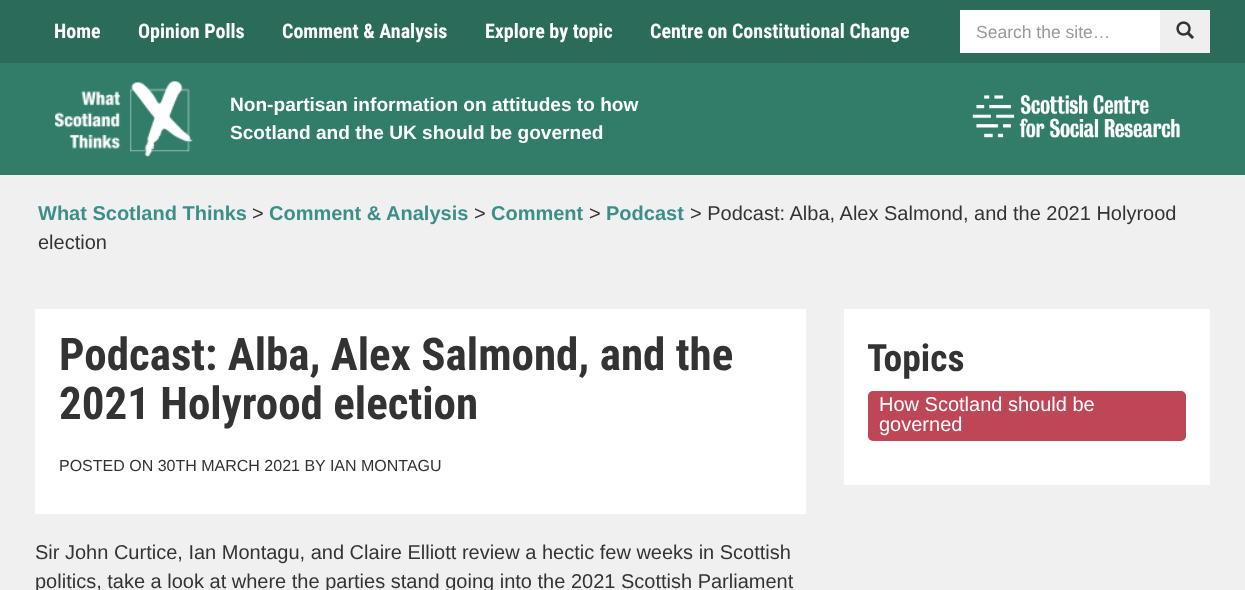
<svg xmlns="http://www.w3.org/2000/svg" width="1245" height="590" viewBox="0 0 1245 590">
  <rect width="100%" height="100%" fill="rgb(240,240,240)"/>
  <rect x="0" y="0" width="1245" height="63" fill="rgb(42,107,90)"/>
  <g font-family="Roboto Condensed" font-size="20" font-weight="bold" fill="rgb(255,255,255)">
    <text x="54" y="38">Home</text>
    <text x="138" y="38">Opinion Polls</text>
    <text x="282" y="38">Comment &amp; Analysis</text>
    <text x="485" y="38">Explore by topic</text>
    <text x="650" y="38">Centre on Constitutional Change</text>
  </g>
  <rect x="960" y="10" width="200" height="43" fill="rgb(255,255,255)"/>
  <text x="976" y="38" font-family="Liberation Sans" font-size="17.5" fill="rgb(153,153,153)">Search the site…</text>
  <rect x="1160" y="10" width="50" height="43" fill="rgb(239,239,239)"/>
  <image x="1176" y="21" width="18" height="18" href="pic1.png"/>
  <rect x="0" y="63" width="1245" height="112" fill="rgb(49,125,106)"/>
  <image x="55" y="81" width="138" height="76" href="pic2.png"/>
  <g font-family="Liberation Sans" font-size="19.1" font-weight="bold" fill="rgb(255,255,255)">
    <text>
      <tspan x="230" y="111">Non-partisan information on attitudes to how</tspan>
      <tspan x="230" y="139">Scotland and the UK should be governed</tspan>
    </text>
  </g>
  <image x="972" y="95" width="208" height="43" href="pic3.png"/>
  <text x="38" y="220" font-family="Liberation Sans" font-size="20" font-weight="bold" fill="rgb(60,142,136)">What Scotland Thinks</text>
  <text x="252" y="220" font-family="Liberation Sans" font-size="20" fill="rgb(51,51,51)">&gt;</text>
  <text x="269" y="220" font-family="Liberation Sans" font-size="20" font-weight="bold" fill="rgb(60,142,136)">Comment &amp; Analysis</text>
  <text x="474" y="220" font-family="Liberation Sans" font-size="20" fill="rgb(51,51,51)">&gt;</text>
  <text x="491" y="220" font-family="Liberation Sans" font-size="20" font-weight="bold" fill="rgb(60,142,136)">Comment</text>
  <text x="589" y="220" font-family="Liberation Sans" font-size="20" fill="rgb(51,51,51)">&gt;</text>
  <text x="606" y="220" font-family="Liberation Sans" font-size="20" font-weight="bold" fill="rgb(60,142,136)">Podcast</text>
  <g font-family="Liberation Sans" font-size="20" fill="rgb(51,51,51)">
    <text x="690" y="220">&gt; Podcast: Alba, Alex Salmond, and the 2021 Holyrood</text>
    <text x="38" y="249">election</text>
  </g>
  <rect x="35" y="309" width="771" height="205" fill="rgb(255,255,255)"/>
  <g font-family="Roboto Condensed" font-size="45" font-weight="bold" fill="rgb(51,51,51)">
    <text>
      <tspan x="59" y="370">Podcast: Alba, Alex Salmond, and the</tspan>
      <tspan x="59" y="419">2021 Holyrood election</tspan>
    </text>
  </g>
  <text x="59" y="471" font-family="Liberation Sans" font-size="16" fill="rgb(51,51,51)">POSTED ON 30TH MARCH 2021 BY IAN MONTAGU</text>
  <g font-family="Liberation Sans" font-size="20" fill="rgb(51,51,51)">
    <text>
      <tspan x="35" y="559">Sir John Curtice, Ian Montagu, and Claire Elliott review a hectic few weeks in Scottish</tspan>
      <tspan x="35" y="588">politics, take a look at where the parties stand going into the 2021 Scottish Parliament</tspan>
    </text>
  </g>
  <rect x="844" y="309" width="366" height="176" fill="rgb(255,255,255)"/>
  <text x="867" y="371" font-family="Roboto Condensed" font-size="37.5" font-weight="bold" fill="rgb(51,51,51)">Topics</text>
  <rect x="868" y="391" width="318" height="50" rx="5" fill="rgb(189,70,87)"/>
  <g font-family="Liberation Sans" font-size="20" fill="rgb(255,255,255)">
    <text>
      <tspan x="879" y="411">How Scotland should be</tspan>
      <tspan x="879" y="431">governed</tspan>
    </text>
  </g>
</svg>
